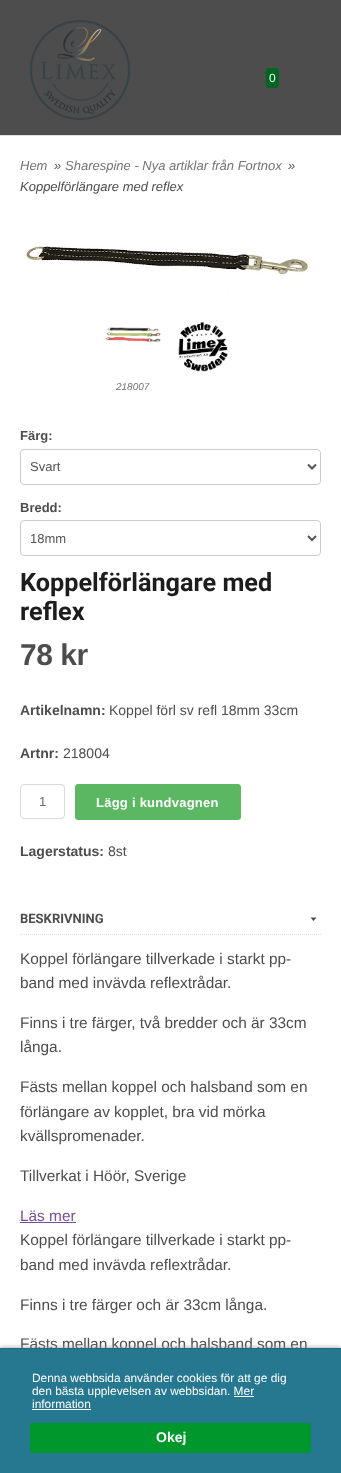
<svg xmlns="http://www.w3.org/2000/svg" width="341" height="1473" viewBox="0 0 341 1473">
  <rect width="100%" height="100%" fill="rgb(255,255,255)"/>
  <rect x="0" y="135" width="341" height="1" fill="rgb(225,225,225)"/>
  <rect x="0" y="0" width="341" height="135" fill="rgb(77,77,77)"/>
  <image x="30" y="20" width="100" height="100" href="pic1.png"/>
  <path d="M268.5 68C279.5 68 279 66.5 279 78C279 88.5 279.5 88.5 268.5 88C265 88 266 80 266 78C266 76 265 68 268.5 68Z" fill="rgb(0,102,31)"/>
  <text x="269" y="82" font-family="Liberation Sans" font-size="12" fill="rgb(255,255,255)">0</text>
  <text x="20" y="170" font-family="Liberation Sans" font-size="13" font-style="italic" fill="rgb(115,115,115)">Hem</text>
  <text x="54" y="170" font-family="Liberation Sans" font-size="13" font-style="italic" fill="rgb(77,77,77)">»</text>
  <text x="65" y="170" font-family="Liberation Sans" font-size="13" font-style="italic" fill="rgb(115,115,115)">Sharespine - Nya artiklar från Fortnox</text>
  <g font-family="Liberation Sans" font-size="13" font-style="italic" fill="rgb(77,77,77)">
    <text x="288" y="170">»</text>
    <text x="20" y="191">Koppelförlängare med reflex</text>
  </g>
  <image x="25" y="244" width="285" height="50" href="pic2.png"/>
  <image x="178" y="322" width="50" height="50" href="pic3.png"/>
  <image x="105" y="327" width="56" height="15" href="pic4.png"/>
  <text x="116" y="390" font-family="Liberation Sans" font-size="10" font-style="italic" fill="rgb(115,115,115)">218007</text>
  <text x="20" y="440" font-family="Liberation Sans" font-size="13" font-weight="bold" fill="rgb(77,77,77)">Färg:</text>
  <rect x="20.5" y="449.5" width="300" height="35" rx="3.5" fill="none" stroke="rgb(204,204,204)"/>
  <path d="M308 464.5L312 468.5L316 464.5" fill="none" stroke="rgb(85,85,85)" stroke-width="2"/>
  <text x="30" y="471" font-family="Liberation Sans" font-size="13" fill="rgb(85,85,85)">Svart</text>
  <text x="20" y="512" font-family="Liberation Sans" font-size="13" font-weight="bold" fill="rgb(77,77,77)">Bredd:</text>
  <rect x="20.5" y="520.5" width="300" height="35" rx="3.5" fill="none" stroke="rgb(204,204,204)"/>
  <path d="M308 536L312 540L316 536" fill="none" stroke="rgb(85,85,85)" stroke-width="2"/>
  <text x="30" y="543" font-family="Liberation Sans" font-size="13" fill="rgb(85,85,85)">18mm</text>
  <g font-family="Roboto" font-size="25.25" font-weight="bold" fill="rgb(29,29,29)">
    <text>
      <tspan x="20" y="591">Koppelförlängare med</tspan>
      <tspan x="20" y="620">reflex</tspan>
    </text>
  </g>
  <text x="20" y="665" font-family="Liberation Sans" font-size="30" font-weight="bold" letter-spacing="-0.5" fill="rgb(77,77,77)">78 kr</text>
  <text x="20" y="715" font-family="Liberation Sans" font-size="14" font-weight="bold" fill="rgb(77,77,77)">Artikelnamn:</text>
  <text x="109" y="715" font-family="Liberation Sans" font-size="14" fill="rgb(77,77,77)">Koppel förl sv refl 18mm 33cm</text>
  <text x="20" y="758" font-family="Liberation Sans" font-size="14" font-weight="bold" fill="rgb(77,77,77)">Artnr:</text>
  <text x="63" y="758" font-family="Liberation Sans" font-size="14" fill="rgb(77,77,77)">218004</text>
  <rect x="20.5" y="784.5" width="44" height="34" rx="3.5" fill="none" stroke="rgb(217,217,217)"/>
  <text x="39" y="806" font-family="Liberation Sans" font-size="13" fill="rgb(108,108,108)">1</text>
  <rect x="75.5" y="784.5" width="165" height="35" rx="2.5" fill="rgb(92,183,99)" stroke="rgb(92,183,99)"/>
  <text x="96" y="807" font-family="Liberation Sans" font-size="13" font-weight="bold" letter-spacing="0.25" fill="rgb(255,255,255)">Lägg i kundvagnen</text>
  <text x="20" y="856" font-family="Liberation Sans" font-size="14" font-weight="bold" fill="rgb(77,77,77)">Lagerstatus:</text>
  <text x="108" y="856" font-family="Liberation Sans" font-size="14" fill="rgb(77,77,77)">8st</text>
  <path d="M20 934.5H321" fill="none" stroke="rgb(225,225,225)" stroke-dasharray="1 1"/>
  <text x="20" y="923" font-family="Roboto" font-size="13" font-weight="bold" fill="rgb(77,77,77)">BESKRIVNING</text>
  <path d="M316.5 917.5L313.5 921L310.5 917.5Z" fill="rgb(77,77,77)"/>
  <g font-family="Liberation Sans" font-size="15.4" fill="rgb(77,77,77)">
    <text>
      <tspan x="20" y="964">Koppel förlängare tillverkade i starkt pp-</tspan>
      <tspan x="20" y="988">band med invävda reflextrådar.</tspan>
    </text>
    <text>
      <tspan x="20" y="1028">Finns i tre färger, två bredder och är 33cm</tspan>
      <tspan x="20" y="1052">långa.</tspan>
    </text>
    <text>
      <tspan x="20" y="1092">Fästs mellan koppel och halsband som en</tspan>
      <tspan x="20" y="1117">förlängare av kopplet, bra vid mörka</tspan>
      <tspan x="20" y="1141">kvällspromenader.</tspan>
    </text>
    <text x="20" y="1181">Tillverkat i Höör, Sverige</text>
  </g>
  <text x="20" y="1221" font-family="Liberation Sans" font-size="15.4" fill="rgb(120,78,154)">Läs mer</text>
  <rect x="20" y="1222" width="56" height="1" fill="rgb(120,78,154)"/>
  <g font-family="Liberation Sans" font-size="15.4" fill="rgb(77,77,77)">
    <text>
      <tspan x="20" y="1245">Koppel förlängare tillverkade i starkt pp-</tspan>
      <tspan x="20" y="1270">band med invävda reflextrådar.</tspan>
    </text>
    <text x="20" y="1310">Finns i tre färger och är 33cm långa.</text>
    <text x="20" y="1349">Fästs mellan koppel och halsband som en</text>
  </g>
  <rect x="0" y="1348" width="341" height="125" fill="rgb(153,153,153)" filter="blur(2.5px)"/>
  <rect x="0" y="1349" width="341" height="124" fill="rgb(37,120,144)"/>
  <rect x="0" y="1348" width="341" height="1" fill="rgb(32,106,127)"/>
  <g font-family="Liberation Sans" font-size="11.9" fill="rgb(255,255,255)">
    <text>
      <tspan x="32" y="1382">Denna webbsida använder cookies för att ge dig</tspan>
      <tspan x="32" y="1395">den bästa upplevelsen av webbsidan. Mer</tspan>
      <tspan x="32" y="1408">information</tspan>
    </text>
  </g>
  <rect x="234" y="1396" width="20" height="1" fill="rgb(255,255,255)"/>
  <rect x="32" y="1409" width="59" height="1" fill="rgb(255,255,255)"/>
  <rect x="30" y="1423" width="281" height="30" rx="3" fill="rgb(0,152,45)"/>
  <text x="156" y="1442" font-family="Liberation Sans" font-size="14" font-weight="bold" fill="rgb(255,255,255)">Okej</text>
</svg>
